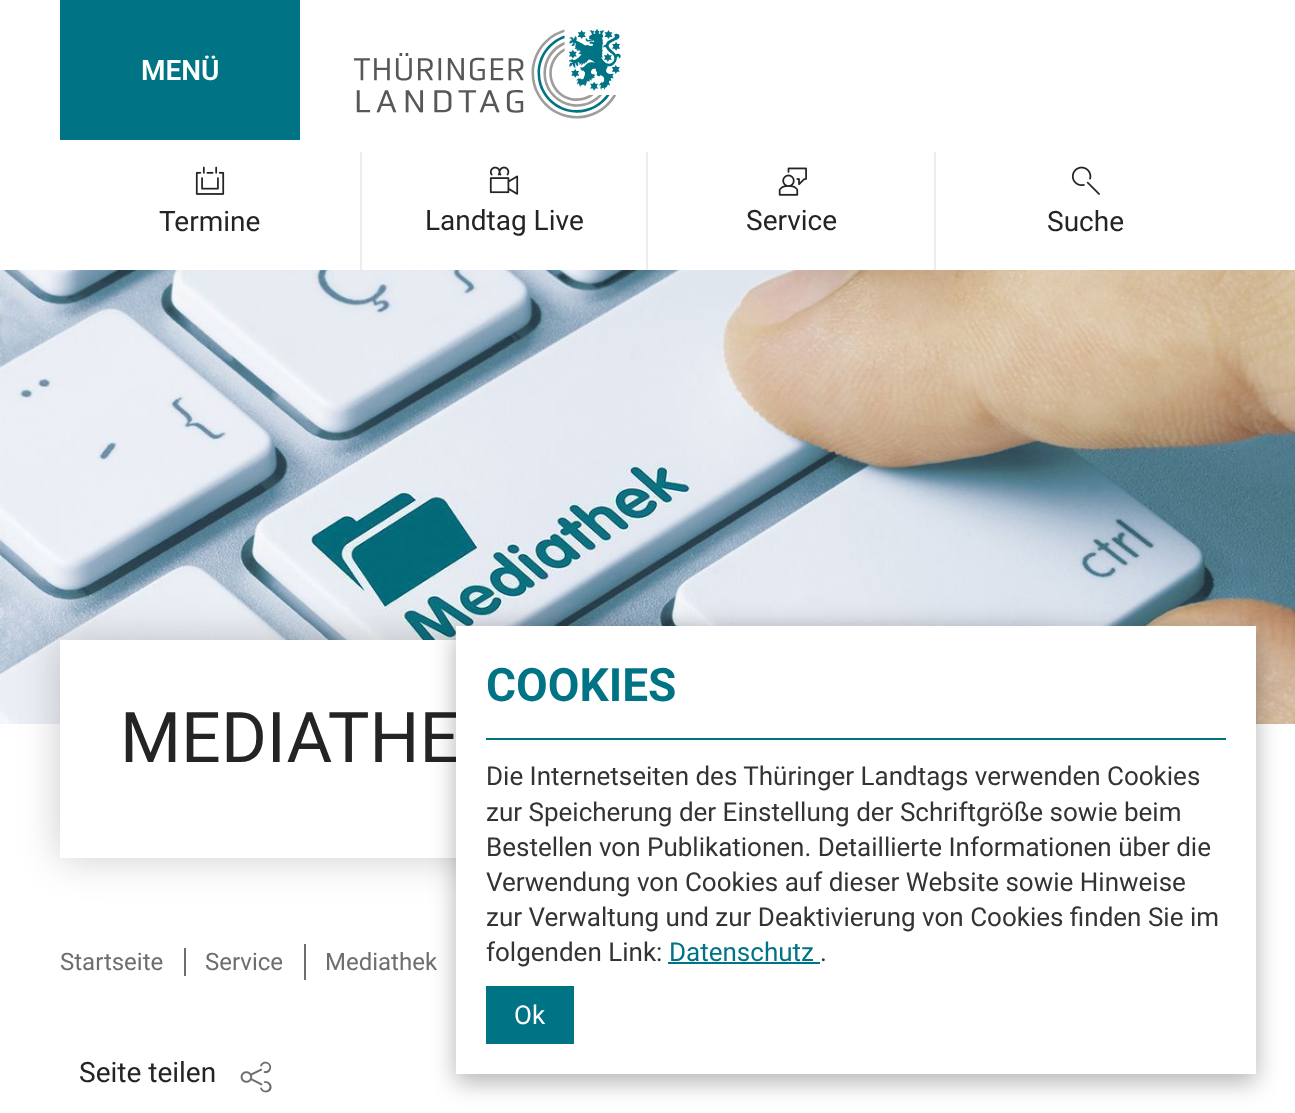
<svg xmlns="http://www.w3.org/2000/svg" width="1295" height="1113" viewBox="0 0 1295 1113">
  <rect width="100%" height="100%" fill="rgb(255,255,255)"/>
  <rect x="60" y="0" width="240" height="140" fill="rgb(0,116,133)"/>
  <text x="141" y="80" font-family="Roboto" font-size="28" font-weight="600" fill="rgb(255,255,255)">MENÜ</text>
  <image x="353" y="29" width="268" height="90" href="pic1.png"/>
  <rect x="360" y="152" width="2" height="122" fill="rgb(236,236,236)"/>
  <image x="195" y="166" width="30" height="29" href="pic2.png"/>
  <text x="159" y="231" font-family="Roboto" font-size="28" fill="rgb(36,36,36)">Termine</text>
  <rect x="646" y="152" width="2" height="122" fill="rgb(236,236,236)"/>
  <image x="489" y="166" width="30" height="29" href="pic3.png"/>
  <text x="425" y="230" font-family="Roboto" font-size="28" fill="rgb(36,36,36)">Landtag Live</text>
  <rect x="934" y="152" width="2" height="122" fill="rgb(236,236,236)"/>
  <image x="778" y="167" width="29" height="29" href="pic4.png"/>
  <text x="746" y="230" font-family="Roboto" font-size="28" fill="rgb(36,36,36)">Service</text>
  <image x="1071" y="166" width="29" height="29" href="pic5.png"/>
  <text x="1047" y="231" font-family="Roboto" font-size="28" fill="rgb(36,36,36)">Suche</text>
  <image x="0" y="270" width="1295" height="454" href="pic6.png"/>
  <rect x="60" y="640" width="1000" height="218" fill="rgba(0,0,0,0.2)" filter="blur(20px)"/>
  <rect x="60" y="640" width="396" height="218" fill="rgb(255,255,255)"/>
  <text x="120" y="762" font-family="Roboto" font-size="70" fill="rgb(36,36,36)">MEDIATHE</text>
  <text x="60" y="970" font-family="Roboto" font-size="24" fill="rgb(110,110,110)">Startseite</text>
  <rect x="184" y="948" width="2" height="28" fill="rgb(110,110,110)"/>
  <text x="205" y="970" font-family="Roboto" font-size="24" fill="rgb(110,110,110)">Service</text>
  <rect x="304" y="944" width="2" height="36" fill="rgb(110,110,110)"/>
  <text x="325" y="970" font-family="Roboto" font-size="24" fill="rgb(110,110,110)">Mediathek</text>
  <text x="79" y="1082" font-family="Roboto" font-size="28" fill="rgb(36,36,36)">Seite teilen</text>
  <image x="240" y="1061" width="32" height="32" href="pic7.png"/>
  <rect x="456" y="634" width="800" height="448" fill="rgba(0,0,0,0.3)" filter="blur(12px)"/>
  <rect x="456" y="626" width="800" height="448" fill="rgb(255,255,255)"/>
  <rect x="486" y="738" width="740" height="2" fill="rgb(0,116,133)"/>
  <text x="486" y="701" font-family="Roboto" font-size="46" font-weight="bold" fill="rgb(0,116,133)">COOKIES</text>
  <g font-family="Roboto" font-size="26" fill="rgb(51,51,51)">
    <text>
      <tspan x="486" y="785">Die Internetseiten des Thüringer Landtags verwenden Cookies</tspan>
      <tspan x="486" y="821">zur Speicherung der Einstellung der Schriftgröße sowie beim</tspan>
      <tspan x="486" y="856">Bestellen von Publikationen. Detaillierte Informationen über die</tspan>
      <tspan x="486" y="891">Verwendung von Cookies auf dieser Website sowie Hinweise</tspan>
      <tspan x="486" y="926">zur Verwaltung und zur Deaktivierung von Cookies finden Sie im</tspan>
      <tspan x="486" y="961">folgenden Link:</tspan>
    </text>
  </g>
  <text x="669" y="961" font-family="Roboto" font-size="26" fill="rgb(0,116,133)">Datenschutz</text>
  <rect x="668" y="962" width="152" height="2" fill="rgb(0,116,133)"/>
  <text x="820" y="961" font-family="Roboto" font-size="26" fill="rgb(51,51,51)">.</text>
  <rect x="486" y="986" width="88" height="58" fill="rgb(0,116,133)"/>
  <text x="514" y="1024" font-family="Roboto" font-size="26" fill="rgb(255,255,255)">Ok</text>
</svg>
